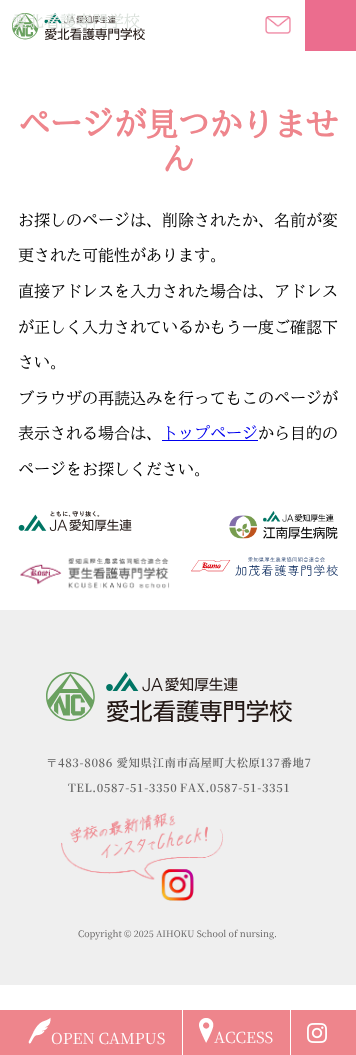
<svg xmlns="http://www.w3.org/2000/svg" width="356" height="1055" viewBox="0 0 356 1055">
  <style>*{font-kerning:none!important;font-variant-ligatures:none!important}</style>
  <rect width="100%" height="100%" fill="rgb(255,255,255)"/>
  <image x="12" y="13" width="133" height="27" href="pic1.png"/>
  <text x="12" y="27" font-family="BIZ UDMincho" font-size="16" fill="rgb(218,225,219)">愛北看護専門学校</text>
  <image x="265" y="16" width="26" height="18" href="pic2.png"/>
  <rect x="305" y="0" width="51" height="51" fill="rgb(235,109,142)"/>
  <g font-family="BIZ UDMincho" font-size="32" font-weight="bold" fill="rgb(238,133,140)">
    <text x="18" y="136">ページが見つかりませ</text>
    <text x="162" y="171">ん</text>
  </g>
  <g font-family="BIZ UDMincho" font-size="16" fill="rgb(0,0,0)">
    <text x="18" y="226">お探しのページは、削除されたか、名前が変</text>
    <text x="18" y="261">更された可能性があります。</text>
    <text x="18" y="297">直接アドレスを入力された場合は、アドレス</text>
    <text x="18" y="333">が正しく入力されているかもう一度ご確認下</text>
    <text x="18" y="368">さい。</text>
    <text x="18" y="404">ブラウザの再読込みを行ってもこのページが</text>
    <text x="18" y="439">表示される場合は、</text>
  </g>
  <text x="162" y="439" font-family="BIZ UDMincho" font-size="16" fill="rgb(0,0,238)">トップページ</text>
  <rect x="162" y="440" width="96" height="1" fill="rgb(0,0,238)"/>
  <g font-family="BIZ UDMincho" font-size="16" fill="rgb(0,0,0)">
    <text x="258" y="439">から目的の</text>
    <text x="18" y="475">ページをお探しください。</text>
  </g>
  <image x="18" y="511" width="114" height="20" href="pic3.png"/>
  <image x="229" y="511" width="109" height="28" href="pic4.png"/>
  <image x="20" y="558" width="150" height="31" href="pic5.png"/>
  <image x="191" y="557" width="147" height="19" href="pic6.png"/>
  <rect x="0" y="610" width="356" height="375" fill="rgb(239,239,239)"/>
  <image x="46" y="672" width="246" height="50" href="pic7.png"/>
  <g font-family="Noto Serif JP" font-size="11.4" font-weight="600" letter-spacing="0.6" fill="rgb(99,99,99)">
    <text x="46" y="767">〒483-8086 愛知県江南市高屋町大松原137番地7</text>
    <text x="68" y="792" word-spacing="-1">TEL.0587-51-3350 FAX.0587-51-3351</text>
  </g>
  <image x="61" y="813" width="162" height="88" href="pic8.png"/>
  <text x="78" y="937" font-family="Noto Serif JP" font-size="9" fill="rgb(89,87,87)">Copyright © 2025 AIHOKU School of nursing.</text>
  <rect x="0" y="1010" width="356" height="45" fill="rgb(238,133,140)"/>
  <image x="28" y="1017" width="23" height="27" href="pic9.png"/>
  <text x="51" y="1044" font-family="Noto Serif JP" font-size="15.25" fill="rgb(255,255,255)">OPEN CAMPUS</text>
  <rect x="290" y="1010" width="1" height="45" fill="rgb(255,255,255)"/>
  <rect x="182" y="1010" width="1" height="45" fill="rgb(255,255,255)"/>
  <image x="199" y="1018" width="15" height="25" href="pic10.png"/>
  <text x="214" y="1043" font-family="Noto Serif JP" font-size="15.25" fill="rgb(255,255,255)">ACCESS</text>
  <image x="307" y="1023" width="20" height="20" href="pic11.png"/>
</svg>
